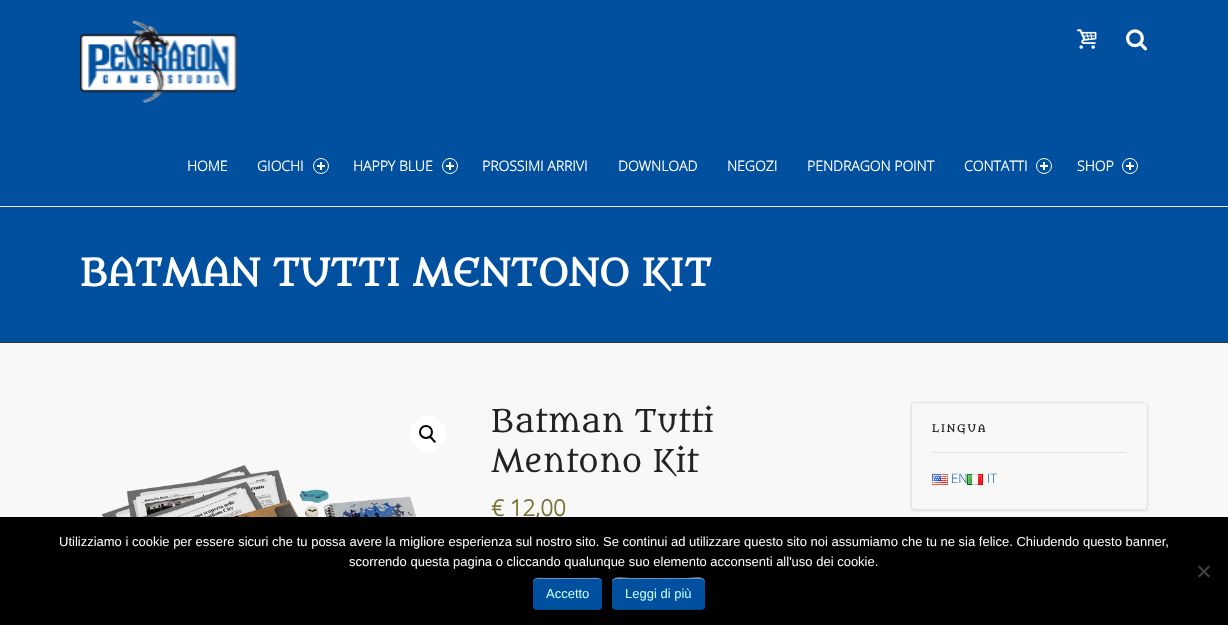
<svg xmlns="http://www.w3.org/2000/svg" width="1228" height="625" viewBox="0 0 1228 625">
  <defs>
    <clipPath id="clip1"><path d="M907 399H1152V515H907ZM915 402H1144C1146 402 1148 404 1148 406V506C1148 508 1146 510 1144 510H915C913 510 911 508 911 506V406C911 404 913 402 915 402Z" clip-rule="evenodd"/></clipPath>
  </defs>
  <rect width="100%" height="100%" fill="rgb(248,248,248)"/>
  <rect x="0" y="0" width="1228" height="206" fill="rgb(1,80,159)"/>
  <rect x="0" y="206" width="1228" height="1" fill="rgb(238,238,238)"/>
  <image x="80" y="20" width="157" height="83" href="pic1.png"/>
  <image x="1077" y="29" width="20" height="20" href="pic2.png"/>
  <image x="1126" y="29" width="22" height="22" href="pic3.png"/>
  <g font-family="Open Sans" font-size="14" font-weight="bold" fill="rgb(255,255,255)">
    <text x="187" y="171">HOME</text>
    <text x="257" y="171">GIOCHI</text>
  </g>
  <circle cx="321" cy="166" r="7.5" fill="none" stroke="rgb(255,255,255)"/>
  <rect x="317" y="165" width="8" height="2" fill="rgb(255,255,255)"/>
  <rect x="320" y="162" width="2" height="8" fill="rgb(255,255,255)"/>
  <text x="353" y="171" font-family="Open Sans" font-size="14" font-weight="bold" fill="rgb(255,255,255)">HAPPY BLUE</text>
  <circle cx="450" cy="166" r="7.5" fill="none" stroke="rgb(255,255,255)"/>
  <rect x="446" y="165" width="8" height="2" fill="rgb(255,255,255)"/>
  <rect x="449" y="162" width="2" height="8" fill="rgb(255,255,255)"/>
  <g font-family="Open Sans" font-size="14" font-weight="bold" fill="rgb(255,255,255)">
    <text x="482" y="171">PROSSIMI ARRIVI</text>
    <text x="618" y="171">DOWNLOAD</text>
    <text x="727" y="171">NEGOZI</text>
    <text x="807" y="171">PENDRAGON POINT</text>
    <text x="964" y="171">CONTATTI</text>
  </g>
  <circle cx="1044" cy="166" r="7.5" fill="none" stroke="rgb(255,255,255)"/>
  <rect x="1040" y="165" width="8" height="2" fill="rgb(255,255,255)"/>
  <rect x="1043" y="162" width="2" height="8" fill="rgb(255,255,255)"/>
  <text x="1077" y="171" font-family="Open Sans" font-size="14" font-weight="bold" fill="rgb(255,255,255)">SHOP</text>
  <circle cx="1130" cy="166" r="7.5" fill="none" stroke="rgb(255,255,255)"/>
  <rect x="1126" y="165" width="8" height="2" fill="rgb(255,255,255)"/>
  <rect x="1129" y="162" width="2" height="8" fill="rgb(255,255,255)"/>
  <rect x="0" y="207" width="1228" height="135" fill="rgb(1,80,159)"/>
  <rect x="0" y="342" width="1228" height="1" fill="rgb(53,53,53)"/>
  <text x="80" y="286" font-family="Metamorphous" font-size="36.7" font-weight="bold" fill="rgb(255,255,255)">BATMAN TUTTI MENTONO KIT</text>
  <circle cx="428" cy="434" r="18" fill="rgb(255,255,255)"/>
  <circle cx="426" cy="432" r="6" fill="none" stroke="rgb(0,0,0)" stroke-width="2"/>
  <path d="M430 436.5C431 435.5 433 438 433.5 439C434 439.5 436.5 441 435.5 442.5C434.5 443.5 432.5 441 432 440C431.5 439.5 428.5 438 430 436.5Z" fill="rgb(0,0,0)"/>
  <image x="101" y="465" width="316" height="52" href="pic4.png"/>
  <g font-family="Metamorphous" font-size="30.75" fill="rgb(35,35,35)">
    <text>
      <tspan x="491" y="432">Batman Tutti</tspan>
      <tspan x="491" y="472">Mentono Kit</tspan>
    </text>
  </g>
  <text x="491" y="516" font-family="Open Sans" font-size="22.5" font-weight="bold" fill="rgb(119,115,53)">€ 12,00</text>
  <g clip-path="url(#clip1)">
    <rect x="911" y="403" width="237" height="108" rx="4" fill="rgba(0,0,0,0.1)" filter="blur(1px)"/>
  </g>
  <rect x="911.5" y="402.5" width="236" height="107" rx="3.5" fill="none" stroke="rgb(227,227,227)"/>
  <rect x="932" y="452" width="195" height="1" fill="rgb(227,227,227)"/>
  <text x="932" y="432" font-family="Metamorphous" font-size="10" font-weight="bold" letter-spacing="2" fill="rgb(35,35,35)">LINGUA</text>
  <image x="932" y="474" width="16" height="11" href="pic5.png"/>
  <text x="951" y="483" font-family="Open Sans" font-size="13" font-weight="300" fill="rgb(1,80,159)">EN</text>
  <image x="967" y="474" width="16" height="11" href="pic6.png"/>
  <text x="987" y="483" font-family="Open Sans" font-size="13" font-weight="300" fill="rgb(1,80,159)">IT</text>
  <rect x="0" y="517" width="1228" height="108" fill="rgb(0,0,0)"/>
  <g font-family="Liberation Sans" font-size="13" fill="rgb(255,255,255)">
    <text x="59" y="546">Utilizziamo i cookie per essere sicuri che tu possa avere la migliore esperienza sul nostro sito. Se continui ad utilizzare questo sito noi assumiamo che tu ne sia felice. Chiudendo questo banner,</text>
    <text x="349" y="566">scorrendo questa pagina o cliccando qualunque suo elemento acconsenti all'uso dei cookie.</text>
  </g>
  <path d="M1208.5 565.5L1210 567L1199.5 577.5L1198 576Z" fill="rgb(64,64,64)"/>
  <path d="M1198 567L1199.5 565.5L1210 576L1208.5 577.5Z" fill="rgb(64,64,64)"/>
  <rect x="533" y="578" width="69" height="32" rx="4" fill="rgb(1,80,159)"/>
  <path d="M533 605C533 612 542 610 547 610H588C593 610 602 612 602 605C602 607 600 609 598 609H537C535 609 533 607 533 605Z" fill="rgba(0,0,0,0.15)"/>
  <path d="M537 579H598C600 579 602 581 602 583C602 576 593 578 588 578H547C542 578 533 576 533 583C533 581 535 579 537 579Z" fill="rgba(255,255,255,0.4)"/>
  <text x="546" y="598" font-family="Liberation Sans" font-size="13" fill="rgb(201,255,255)">Accetto</text>
  <rect x="612" y="578" width="93" height="32" rx="4" fill="rgb(1,80,159)"/>
  <path d="M612 605C612 614 626 610 630 610H687C691 610 705 614 705 605C705 607 703 609 701 609H616C614 609 612 607 612 605Z" fill="rgba(0,0,0,0.15)"/>
  <path d="M616 579H701C703 579 705 581 705 583C705 574 691 578 687 578H630C626 578 612 574 612 583C612 581 614 579 616 579Z" fill="rgba(255,255,255,0.4)"/>
  <text x="625" y="598" font-family="Liberation Sans" font-size="13" fill="rgb(201,255,255)">Leggi di più</text>
</svg>
